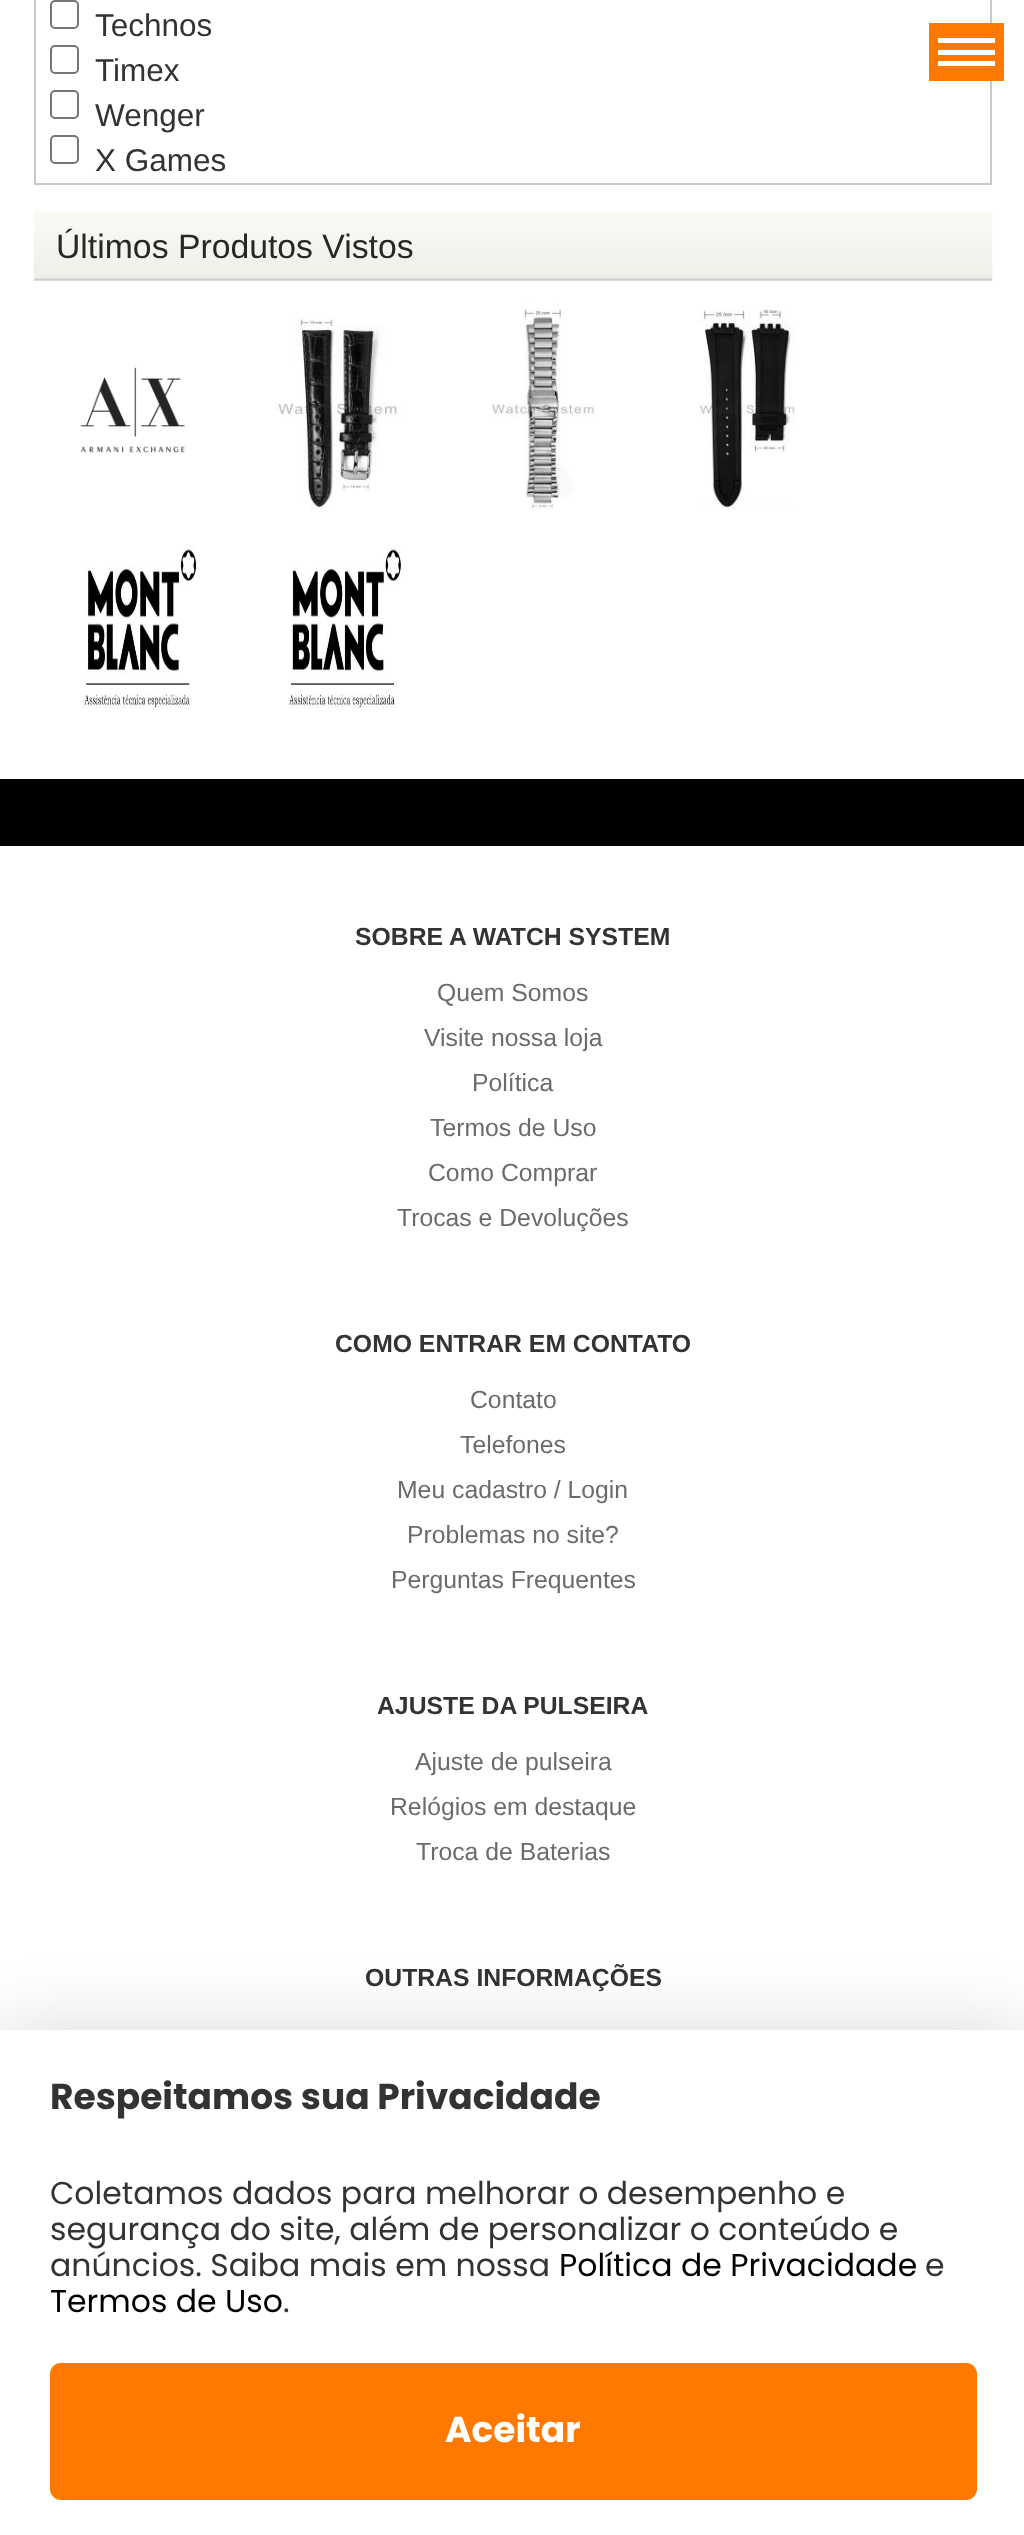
<svg xmlns="http://www.w3.org/2000/svg" width="1024" height="2535" viewBox="0 0 1024 2535">
  <rect width="100%" height="100%" fill="rgb(255,255,255)"/>
  <rect x="35" y="-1" width="956" height="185" fill="none" stroke="rgb(202,202,202)" stroke-width="2"/>
  <rect x="51" y="1" width="27" height="27" rx="4" fill="none" stroke="rgb(118,118,118)" stroke-width="2"/>
  <text x="95" y="36" font-family="Liberation Sans" font-size="31.5" fill="rgb(51,51,51)">Technos</text>
  <rect x="51" y="46" width="27" height="27" rx="4" fill="none" stroke="rgb(118,118,118)" stroke-width="2"/>
  <text x="95" y="81" font-family="Liberation Sans" font-size="31.5" fill="rgb(51,51,51)">Timex</text>
  <rect x="51" y="91" width="27" height="27" rx="4" fill="none" stroke="rgb(118,118,118)" stroke-width="2"/>
  <text x="95" y="126" font-family="Liberation Sans" font-size="31.5" fill="rgb(51,51,51)">Wenger</text>
  <rect x="51" y="136" width="27" height="27" rx="4" fill="none" stroke="rgb(118,118,118)" stroke-width="2"/>
  <text x="95" y="171" font-family="Liberation Sans" font-size="31.5" fill="rgb(51,51,51)">X Games</text>
  <image x="33" y="211" width="960" height="70" href="pic1.png"/>
  <text x="56" y="258" font-family="Liberation Sans" font-size="33.75" fill="rgb(39,39,39)">Últimos Produtos Vistos</text>
  <image x="80" y="367" width="105" height="86" href="pic2.png"/>
  <image x="273" y="318" width="128" height="192" href="pic3.png"/>
  <image x="491" y="303" width="106" height="207" href="pic4.png"/>
  <image x="698" y="309" width="98" height="201" href="pic5.png"/>
  <image x="83" y="545" width="116" height="164" href="pic6.png"/>
  <image x="288" y="545" width="115" height="164" href="pic7.png"/>
  <rect x="929" y="23" width="75" height="58" fill="rgb(255,121,0)"/>
  <rect x="938" y="38" width="57" height="5" fill="rgb(255,255,255)"/>
  <rect x="938" y="50" width="57" height="5" fill="rgb(255,255,255)"/>
  <rect x="938" y="61" width="57" height="5" fill="rgb(255,255,255)"/>
  <rect x="0" y="779" width="1024" height="67" fill="rgb(0,0,0)"/>
  <text x="355" y="945" font-family="Liberation Sans" font-size="24.75" font-weight="bold" fill="rgb(51,51,51)">SOBRE A WATCH SYSTEM</text>
  <g font-family="Liberation Sans" font-size="24.75" fill="rgb(107,107,107)">
    <text x="437" y="1001">Quem Somos</text>
    <text x="424" y="1046">Visite nossa loja</text>
    <text x="472" y="1091">Política</text>
    <text x="430" y="1136">Termos de Uso</text>
    <text x="428" y="1181">Como Comprar</text>
    <text x="397" y="1226">Trocas e Devoluções</text>
  </g>
  <text x="335" y="1352" font-family="Liberation Sans" font-size="24.75" font-weight="bold" fill="rgb(51,51,51)">COMO ENTRAR EM CONTATO</text>
  <g font-family="Liberation Sans" font-size="24.75" fill="rgb(107,107,107)">
    <text x="470" y="1408">Contato</text>
    <text x="460" y="1453">Telefones</text>
    <text x="397" y="1498">Meu cadastro / Login</text>
    <text x="407" y="1543">Problemas no site?</text>
    <text x="391" y="1588">Perguntas Frequentes</text>
  </g>
  <text x="377" y="1714" font-family="Liberation Sans" font-size="24.75" font-weight="bold" fill="rgb(51,51,51)">AJUSTE DA PULSEIRA</text>
  <g font-family="Liberation Sans" font-size="24.75" fill="rgb(107,107,107)">
    <text x="415" y="1770">Ajuste de pulseira</text>
    <text x="390" y="1815">Relógios em destaque</text>
    <text x="416" y="1860">Troca de Baterias</text>
  </g>
  <text x="365" y="1986" font-family="Liberation Sans" font-size="24.75" font-weight="bold" fill="rgb(51,51,51)">OUTRAS INFORMAÇÕES</text>
  <rect x="0" y="2030" width="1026" height="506" fill="rgba(5,0,31,0.15)" filter="blur(36px)"/>
  <rect x="0" y="2030" width="1024" height="505" fill="rgb(255,255,255)"/>
  <text x="50" y="2109" font-family="Poppins" font-size="36" font-weight="bold" fill="rgb(51,51,51)">Respeitamos sua Privacidade</text>
  <g font-family="Poppins" font-size="31.5" fill="rgb(51,51,51)">
    <text>
      <tspan x="50" y="2204">Coletamos dados para melhorar o desempenho e</tspan>
      <tspan x="50" y="2240">segurança do site, além de personalizar o conteúdo e</tspan>
      <tspan x="50" y="2276">anúncios. Saiba mais em nossa</tspan>
    </text>
  </g>
  <text x="559" y="2276" font-family="Poppins" font-size="31.5" fill="rgb(0,0,0)">Política de Privacidade</text>
  <text x="925" y="2276" font-family="Poppins" font-size="31.5" fill="rgb(51,51,51)">e</text>
  <text x="50" y="2312" font-family="Poppins" font-size="31.5" fill="rgb(0,0,0)">Termos de Uso</text>
  <text x="283" y="2312" font-family="Poppins" font-size="31.5" fill="rgb(51,51,51)">.</text>
  <rect x="50" y="2363" width="927" height="137" rx="11" fill="rgb(255,121,0)"/>
  <text x="445" y="2442" font-family="Poppins" font-size="36" font-weight="bold" fill="rgb(255,255,255)">Aceitar</text>
</svg>
